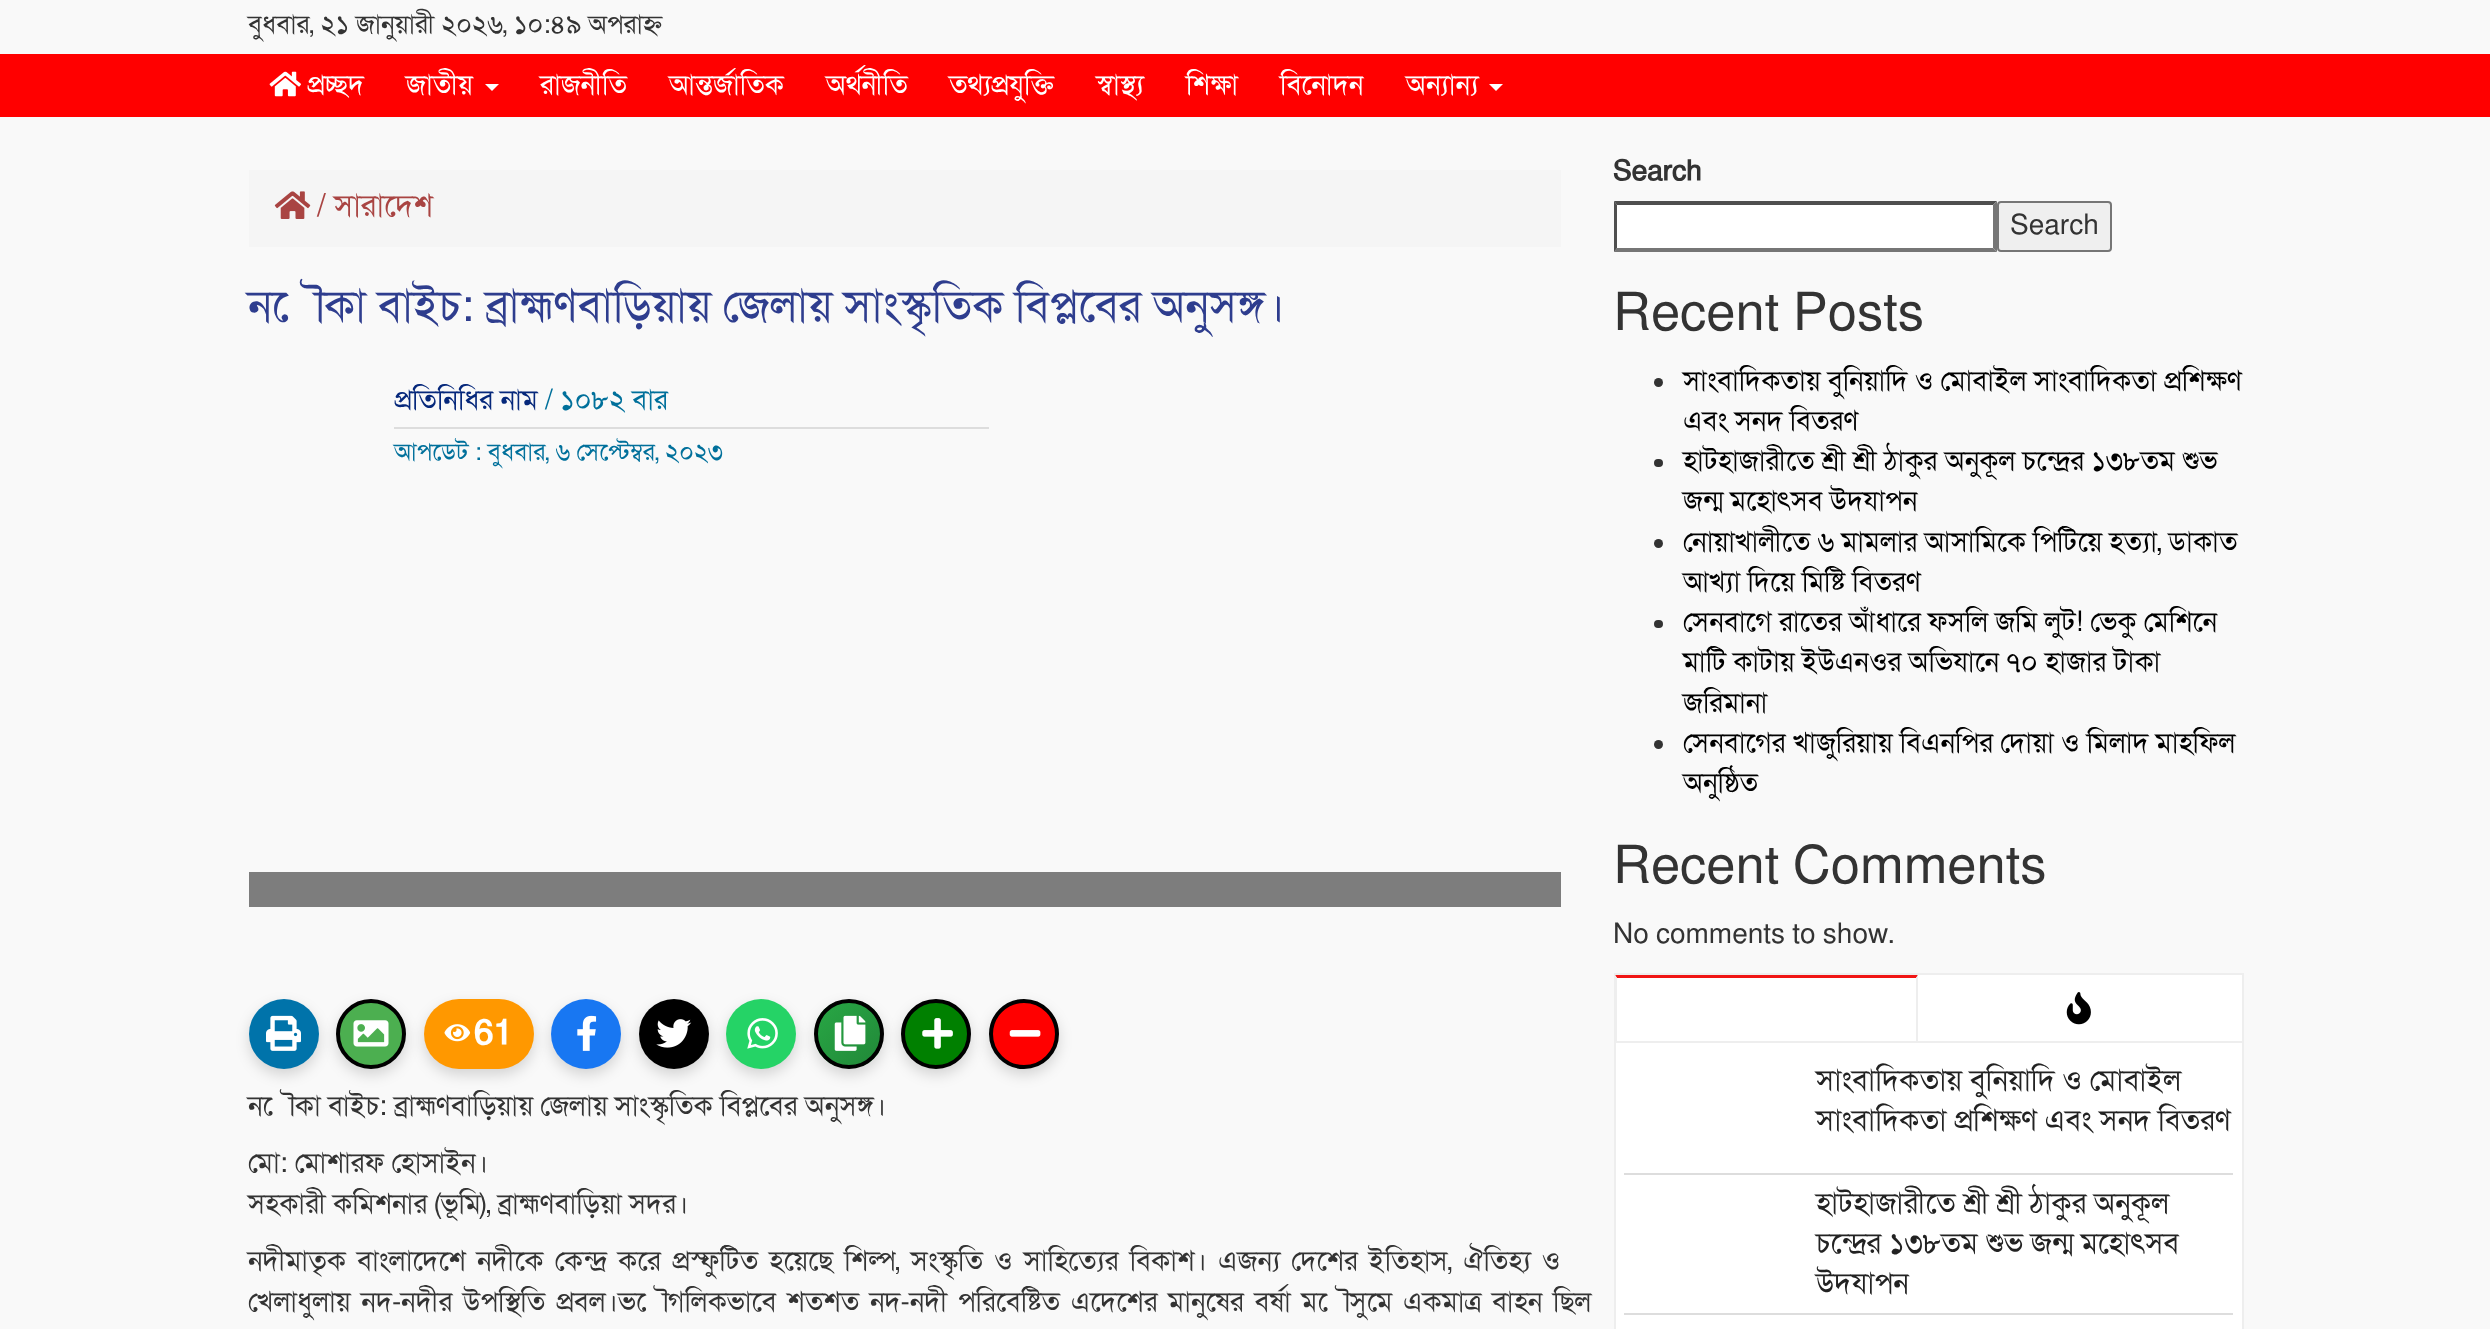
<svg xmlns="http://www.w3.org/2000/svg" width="2490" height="1329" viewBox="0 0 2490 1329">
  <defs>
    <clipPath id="clip1"><rect x="814" y="999" width="70" height="70" rx="35"/></clipPath>
    <linearGradient id="g1" gradientUnits="userSpaceOnUse" x1="817" y1="1003" x2="880" y2="1066"><stop offset="0" stop-color="rgb(40,167,69)"/><stop offset="1" stop-color="rgb(33,136,56)"/></linearGradient>
  </defs>
  <rect width="100%" height="100%" fill="rgb(249,249,249)"/>
  <text x="248" y="33" font-family="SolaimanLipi" font-size="26.25" fill="rgb(51,51,51)">বুধবার, ২১ জানুয়ারী ২০২৬, ১০:৪৯ অপরাহ্ন</text>
  <rect x="0" y="54" width="2490" height="63" fill="rgb(255,0,0)"/>
  <image x="269" y="71" width="32" height="26" href="pic1.png"/>
  <g font-family="SolaimanLipi" font-size="28" fill="rgb(255,255,255)">
    <text x="307" y="94">প্রচ্ছদ</text>
    <text x="406" y="94">জাতীয়</text>
  </g>
  <path d="M485 84H499L492 91Z" fill="rgb(255,255,255)"/>
  <g font-family="SolaimanLipi" font-size="28" fill="rgb(255,255,255)">
    <text x="540" y="94">রাজনীতি</text>
    <text x="669" y="94">আন্তর্জাতিক</text>
    <text x="826" y="94">অর্থনীতি</text>
    <text x="949" y="94">তথ্যপ্রযুক্তি</text>
    <text x="1096" y="94">স্বাস্থ্য</text>
    <text x="1186" y="94">শিক্ষা</text>
    <text x="1280" y="94">বিনোদন</text>
    <text x="1406" y="94">অন্যান্য</text>
  </g>
  <path d="M1489 84H1503L1496 91Z" fill="rgb(255,255,255)"/>
  <rect x="249" y="170" width="1312" height="77" fill="rgb(245,245,245)"/>
  <image x="274" y="191" width="37" height="28" href="pic2.png"/>
  <text x="317" y="216" font-family="SolaimanLipi" font-size="31.5" fill="rgb(169,68,66)">/ সারাদেশ</text>
  <text x="248" y="321" font-family="SolaimanLipi" font-size="45.5" fill="rgb(46,61,142)">নৌকা বাইচ: ব্রাহ্মণবাড়িয়ায় জেলায় সাংস্কৃতিক বিপ্লবের অনুসঙ্গ।</text>
  <rect x="394" y="427" width="595" height="2" fill="rgb(221,221,221)"/>
  <text x="394" y="409" font-family="SolaimanLipi" font-size="28" fill="rgb(6,40,123)">প্রতিনিধির নাম</text>
  <text x="545" y="409" font-family="SolaimanLipi" font-size="28" fill="rgb(0,112,155)">/ ১০৮২ বার</text>
  <text x="394" y="460" font-family="SolaimanLipi" font-size="24.5" fill="rgb(0,112,155)">আপডেট : বুধবার, ৬ সেপ্টেম্বর, ২০২৩</text>
  <rect x="249" y="872" width="1312" height="35" fill="rgb(125,125,125)"/>
  <rect x="249" y="1005" width="70" height="70" rx="35" fill="rgba(0,0,0,0.15)" filter="blur(7px)"/>
  <circle cx="284" cy="1034" r="35" fill="rgb(0,115,170)"/>
  <image x="266" y="1015" width="35" height="36" href="pic3.png"/>
  <rect x="336" y="1005" width="70" height="70" rx="35" fill="rgba(0,0,0,0.15)" filter="blur(7px)"/>
  <circle cx="371" cy="1034" r="33" fill="rgb(76,175,80)" stroke="rgb(0,0,0)" stroke-width="4"/>
  <image x="353" y="1020" width="36" height="27" href="pic4.png"/>
  <rect x="424" y="1005" width="110" height="70" rx="35" fill="rgba(0,0,0,0.15)" filter="blur(7px)"/>
  <rect x="424" y="999" width="110" height="70" rx="35" fill="rgb(255,152,0)"/>
  <image x="444" y="1024" width="27" height="18" href="pic5.png"/>
  <text x="474" y="1044" font-family="SolaimanLipi" font-size="35" font-weight="bold" fill="rgb(255,255,255)">61</text>
  <rect x="551" y="1005" width="70" height="70" rx="35" fill="rgba(0,0,0,0.15)" filter="blur(7px)"/>
  <circle cx="586" cy="1034" r="35" fill="rgb(24,119,242)"/>
  <image x="577" y="1015" width="20" height="36" href="pic6.png"/>
  <rect x="639" y="1005" width="70" height="70" rx="35" fill="rgba(0,0,0,0.15)" filter="blur(7px)"/>
  <circle cx="674" cy="1034" r="35" fill="rgb(0,0,0)"/>
  <image x="656" y="1019" width="36" height="29" href="pic7.png"/>
  <rect x="726" y="1005" width="70" height="70" rx="35" fill="rgba(0,0,0,0.15)" filter="blur(7px)"/>
  <circle cx="761" cy="1034" r="35" fill="rgb(37,211,102)"/>
  <image x="747" y="1018" width="31" height="31" href="pic8.png"/>
  <rect x="814" y="1005" width="70" height="70" rx="35" fill="rgba(0,0,0,0.15)" filter="blur(7px)"/>
  <g clip-path="url(#clip1)">
    <rect x="817" y="1003" width="63" height="63" fill="url(#g1)"/>
  </g>
  <circle cx="849" cy="1034" r="33" fill="none" stroke="rgb(0,0,0)" stroke-width="4"/>
  <image x="834" y="1015" width="32" height="36" href="pic9.png"/>
  <rect x="901" y="1005" width="70" height="70" rx="35" fill="rgba(0,0,0,0.15)" filter="blur(7px)"/>
  <circle cx="936" cy="1034" r="33" fill="rgb(0,128,0)" stroke="rgb(0,0,0)" stroke-width="4"/>
  <image x="922" y="1018" width="31" height="31" href="pic10.png"/>
  <rect x="989" y="1005" width="70" height="70" rx="35" fill="rgba(0,0,0,0.15)" filter="blur(7px)"/>
  <circle cx="1024" cy="1034" r="33" fill="rgb(255,0,0)" stroke="rgb(0,0,0)" stroke-width="4"/>
  <image x="1009" y="1030" width="32" height="7" href="pic11.png"/>
  <g font-family="SolaimanLipi" font-size="28" fill="rgb(51,51,51)">
    <text x="248" y="1115">নৌকা বাইচ: ব্রাহ্মণবাড়িয়ায় জেলায় সাংস্কৃতিক বিপ্লবের অনুসঙ্গ।</text>
    <text>
      <tspan x="248" y="1172">মো: মোশারফ হোসাইন।</tspan>
      <tspan x="248" y="1213">সহকারী কমিশনার (ভূমি), ব্রাহ্মণবাড়িয়া সদর।</tspan>
    </text>
    <text>
      <tspan x="248" y="1270" word-spacing="3.9">নদীমাতৃক বাংলাদেশে নদীকে কেন্দ্র করে প্রস্ফুটিত হয়েছে শিল্প, সংস্কৃতি ও সাহিত্যের বিকাশ। এজন্য দেশের ইতিহাস, ঐতিহ্য ও</tspan>
      <tspan x="248" y="1311" word-spacing="3.5">খেলাধুলায় নদ-নদীর উপস্থিতি প্রবল।ভৌগলিকভাবে শতশত নদ-নদী পরিবেষ্টিত এদেশের মানুষের বর্ষা মৌসুমে একমাত্র বাহন ছিল</tspan>
    </text>
  </g>
  <text x="1613" y="180" font-family="SolaimanLipi" font-size="28" font-weight="bold" fill="rgb(51,51,51)">Search</text>
  <rect x="1614" y="201" width="383" height="51" fill="rgb(255,255,255)"/>
  <path d="M1614 201H1997L1993 205H1617Z" fill="rgb(79,79,79)"/>
  <path d="M1997 201V252L1993 248V205Z" fill="rgb(118,118,118)"/>
  <path d="M1997 252H1614L1617 248H1993Z" fill="rgb(118,118,118)"/>
  <path d="M1614 252V201L1617 205V248Z" fill="rgb(79,79,79)"/>
  <rect x="1998" y="202" width="113" height="49" rx="3" fill="rgb(239,239,239)" stroke="rgb(118,118,118)" stroke-width="2"/>
  <text x="2010" y="234" font-family="SolaimanLipi" font-size="28" fill="rgb(51,51,51)">Search</text>
  <text x="1613" y="330" font-family="SolaimanLipi" font-size="52.5" fill="rgb(51,51,51)">Recent Posts</text>
  <circle cx="1658.5" cy="382.5" r="4.5" fill="rgb(51,51,51)"/>
  <g font-family="SolaimanLipi" font-size="28" fill="rgb(0,0,0)">
    <text>
      <tspan x="1683" y="390">সাংবাদিকতায় বুনিয়াদি ও মোবাইল সাংবাদিকতা প্রশিক্ষণ</tspan>
      <tspan x="1683" y="430">এবং সনদ বিতরণ</tspan>
    </text>
  </g>
  <rect x="1654" y="459" width="9" height="8" rx="4" fill="rgb(51,51,51)"/>
  <g font-family="SolaimanLipi" font-size="28" fill="rgb(0,0,0)">
    <text>
      <tspan x="1683" y="470">হাটহাজারীতে শ্রী শ্রী ঠাকুর অনুকূল চন্দ্রের ১৩৮তম শুভ</tspan>
      <tspan x="1683" y="510">জন্ম মহোৎসব উদযাপন</tspan>
    </text>
  </g>
  <circle cx="1658.5" cy="543.5" r="4.5" fill="rgb(51,51,51)"/>
  <g font-family="SolaimanLipi" font-size="28" fill="rgb(0,0,0)">
    <text>
      <tspan x="1683" y="551">নোয়াখালীতে ৬ মামলার আসামিকে পিটিয়ে হত্যা, ডাকাত</tspan>
      <tspan x="1683" y="591">আখ্যা দিয়ে মিষ্টি বিতরণ</tspan>
    </text>
  </g>
  <rect x="1654" y="620" width="9" height="8" rx="4" fill="rgb(51,51,51)"/>
  <g font-family="SolaimanLipi" font-size="28" fill="rgb(0,0,0)">
    <text>
      <tspan x="1683" y="631">সেনবাগে রাতের আঁধারে ফসলি জমি লুট! ভেকু মেশিনে</tspan>
      <tspan x="1683" y="671">মাটি কাটায় ইউএনওর অভিযানে ৭০ হাজার টাকা</tspan>
      <tspan x="1683" y="712">জরিমানা</tspan>
    </text>
  </g>
  <circle cx="1658.5" cy="744.5" r="4.5" fill="rgb(51,51,51)"/>
  <g font-family="SolaimanLipi" font-size="28" fill="rgb(0,0,0)">
    <text>
      <tspan x="1683" y="752">সেনবাগের খাজুরিয়ায় বিএনপির দোয়া ও মিলাদ মাহফিল</tspan>
      <tspan x="1683" y="792">অনুষ্ঠিত</tspan>
    </text>
  </g>
  <text x="1613" y="883" font-family="SolaimanLipi" font-size="52.5" fill="rgb(51,51,51)">Recent Comments</text>
  <text x="1613" y="943" font-family="SolaimanLipi" font-size="28" fill="rgb(51,51,51)">No comments to show.</text>
  <rect x="1616" y="975" width="626" height="354" fill="rgb(255,255,255)"/>
  <rect x="1614" y="973" width="630" height="2" fill="rgb(238,238,238)"/>
  <rect x="2242" y="973" width="2" height="68" fill="rgb(238,238,238)"/>
  <rect x="1614" y="973" width="2" height="68" fill="rgb(238,238,238)"/>
  <rect x="1615" y="975" width="1" height="66" fill="rgb(255,255,255)"/>
  <path d="M1615 975H1918L1916 978H1617Z" fill="rgb(241,21,20)"/>
  <path d="M1918 975V1041H1916V978Z" fill="rgb(238,238,238)"/>
  <path d="M1615 1041V975L1617 978V1041Z" fill="rgb(238,238,238)"/>
  <image x="2066" y="992" width="25" height="33" href="pic12.png"/>
  <rect x="1615" y="1042" width="628" height="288" fill="none" stroke="rgb(238,238,238)" stroke-width="2"/>
  <rect x="1624" y="1173" width="609" height="2" fill="rgb(221,221,221)"/>
  <g font-family="SolaimanLipi" font-size="29.75" fill="rgb(34,34,34)">
    <text>
      <tspan x="1816" y="1090">সাংবাদিকতায় বুনিয়াদি ও মোবাইল</tspan>
      <tspan x="1816" y="1130">সাংবাদিকতা প্রশিক্ষণ এবং সনদ বিতরণ</tspan>
    </text>
  </g>
  <rect x="1624" y="1313" width="609" height="2" fill="rgb(221,221,221)"/>
  <g font-family="SolaimanLipi" font-size="29.75" fill="rgb(34,34,34)">
    <text>
      <tspan x="1816" y="1213">হাটহাজারীতে শ্রী শ্রী ঠাকুর অনুকূল</tspan>
      <tspan x="1816" y="1253">চন্দ্রের ১৩৮তম শুভ জন্ম মহোৎসব</tspan>
      <tspan x="1816" y="1293">উদযাপন</tspan>
    </text>
  </g>
</svg>
